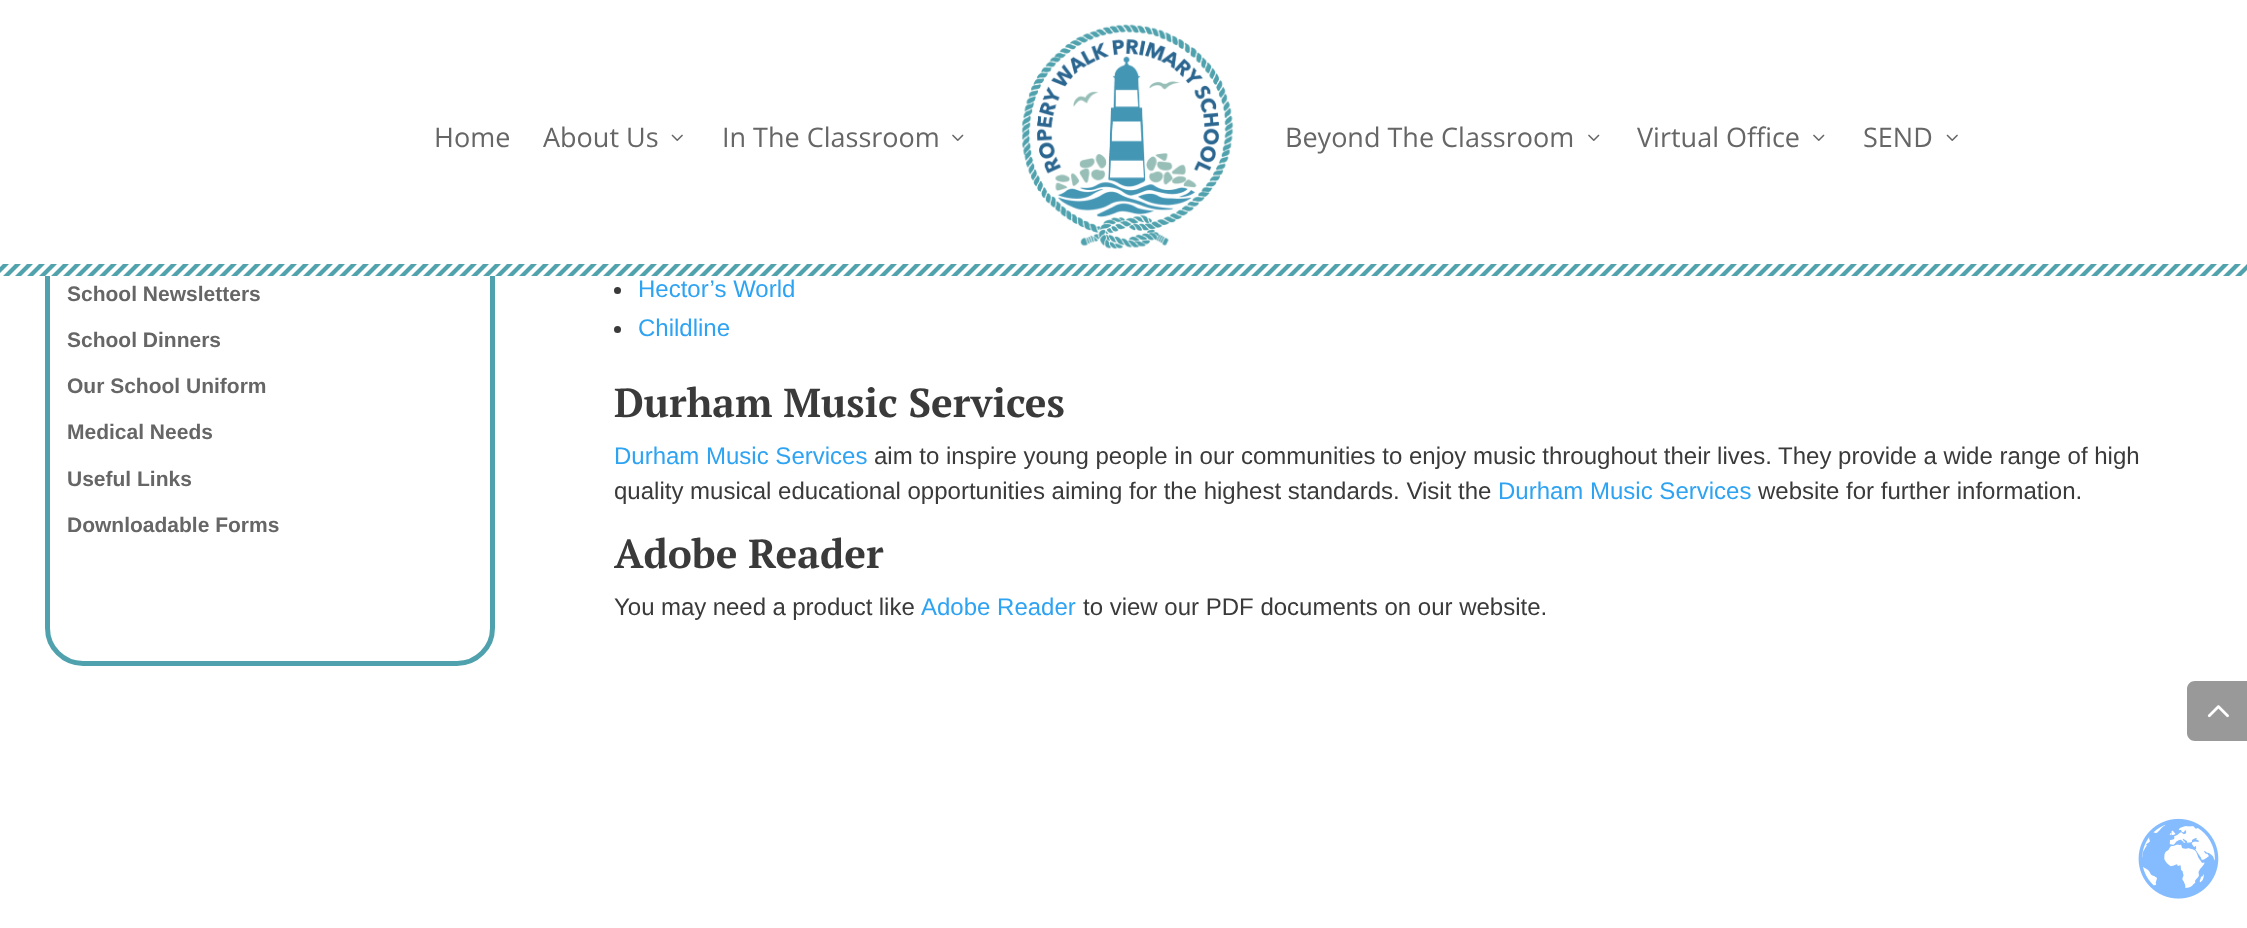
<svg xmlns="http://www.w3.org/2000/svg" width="2247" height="928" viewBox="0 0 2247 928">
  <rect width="100%" height="100%" fill="rgb(255,255,255)"/>
  <rect x="47.5" y="2.5" width="445" height="661" rx="35.5" fill="none" stroke="rgb(79,162,173)" stroke-width="5"/>
  <rect x="45" y="0" width="450" height="276" fill="rgb(255,255,255)"/>
  <image x="0" y="264" width="2247" height="12" href="pic1.png"/>
  <g font-family="Open Sans" font-size="27" fill="rgb(102,102,102)">
    <text x="434" y="147">Home</text>
    <text x="543" y="147">About Us</text>
  </g>
  <image x="671" y="134" width="12" height="7" href="pic2.png"/>
  <text x="722" y="147" font-family="Open Sans" font-size="27" fill="rgb(102,102,102)">In The Classroom</text>
  <image x="952" y="134" width="12" height="7" href="pic3.png"/>
  <image x="1021" y="24" width="213" height="226" href="pic4.png"/>
  <text x="1285" y="147" font-family="Open Sans" font-size="27" fill="rgb(102,102,102)">Beyond The Classroom</text>
  <image x="1588" y="134" width="12" height="7" href="pic3.png"/>
  <text x="1637" y="147" font-family="Open Sans" font-size="27" fill="rgb(102,102,102)">Virtual Office</text>
  <image x="1813" y="134" width="12" height="7" href="pic3.png"/>
  <text x="1863" y="147" font-family="Open Sans" font-size="27" fill="rgb(102,102,102)">SEND</text>
  <image x="1946" y="134" width="12" height="7" href="pic2.png"/>
  <g font-family="Liberation Sans" font-size="21" font-weight="bold" fill="rgb(102,102,102)">
    <text x="67" y="301">School Newsletters</text>
    <text x="67" y="347">School Dinners</text>
    <text x="67" y="393">Our School Uniform</text>
    <text x="67" y="439">Medical Needs</text>
    <text x="67" y="486">Useful Links</text>
    <text x="67" y="532">Downloadable Forms</text>
  </g>
  <circle cx="617.5" cy="290.5" r="3.5" fill="rgb(58,58,58)"/>
  <text x="638" y="297" font-family="Liberation Sans" font-size="24" fill="rgb(46,163,242)">Hector’s World</text>
  <circle cx="617.5" cy="329.5" r="3.5" fill="rgb(58,58,58)"/>
  <text x="638" y="336" font-family="Liberation Sans" font-size="24" fill="rgb(46,163,242)">Childline</text>
  <text x="614" y="417" font-family="PT Serif" font-size="40.5" font-weight="bold" fill="rgb(58,58,58)">Durham Music Services</text>
  <text x="614" y="464" font-family="Liberation Sans" font-size="24" fill="rgb(46,163,242)">Durham Music Services</text>
  <g font-family="Liberation Sans" font-size="24" fill="rgb(58,58,58)">
    <text x="874" y="464">aim to inspire young people in our communities to enjoy music throughout their lives. They provide a wide range of high</text>
    <text x="614" y="499">quality musical educational opportunities aiming for the highest standards. Visit the</text>
  </g>
  <text x="1498" y="499" font-family="Liberation Sans" font-size="24" fill="rgb(46,163,242)">Durham Music Services</text>
  <text x="1758" y="499" font-family="Liberation Sans" font-size="24" fill="rgb(58,58,58)">website for further information.</text>
  <text x="614" y="568" font-family="PT Serif" font-size="40.5" font-weight="bold" fill="rgb(58,58,58)">Adobe Reader</text>
  <text x="614" y="615" word-spacing="-0.25" font-family="Liberation Sans" font-size="24" fill="rgb(58,58,58)">You may need a product like</text>
  <text x="921" y="615" font-family="Liberation Sans" font-size="24" fill="rgb(46,163,242)">Adobe Reader</text>
  <text x="1083" y="615" font-family="Liberation Sans" font-size="24" fill="rgb(58,58,58)">to view our PDF documents on our website.</text>
  <path d="M2195 681H2247V741H2195C2190.5 741 2187 737.5 2187 733V689C2187 684.5 2190.5 681 2195 681Z" fill="rgb(153,153,153)"/>
  <image x="2207" y="705" width="22" height="13" href="pic5.png"/>
  <image x="2138" y="818" width="81" height="81" href="pic6.png"/>
</svg>
